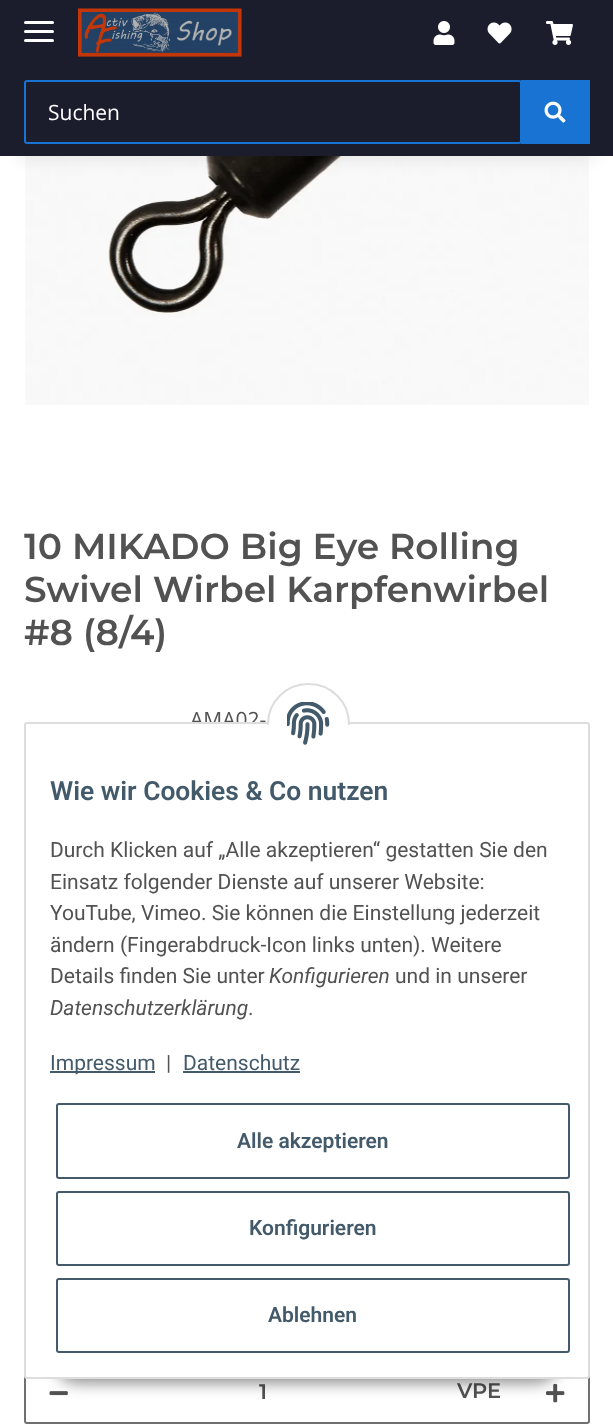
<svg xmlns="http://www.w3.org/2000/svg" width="613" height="1426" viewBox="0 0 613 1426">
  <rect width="100%" height="100%" fill="rgb(255,255,255)"/>
  <image x="25" y="156" width="564" height="249" href="pic6.png"/>
  <rect x="18" y="42" width="578" height="120" fill="rgba(0,0,0,0.06)" filter="blur(7px)"/>
  <rect x="0" y="0" width="613" height="156" fill="rgb(28,29,44)"/>
  <rect x="24" y="30" width="30" height="3" rx="1.5" fill="rgb(255,255,255)"/>
  <rect x="24" y="21" width="30" height="3" rx="1.5" fill="rgb(255,255,255)"/>
  <rect x="24" y="39" width="30" height="3" rx="1.5" fill="rgb(255,255,255)"/>
  <image x="78" y="8" width="164" height="49" href="pic1.png"/>
  <image x="433" y="21" width="22" height="24" href="pic2.png"/>
  <image x="487" y="22" width="25" height="22" href="pic3.png"/>
  <image x="546" y="21" width="27" height="24" href="pic4.png"/>
  <rect x="25" y="81" width="496" height="62" rx="2" fill="none" stroke="rgb(25,115,211)" stroke-width="2"/>
  <text x="48" y="120" font-family="Open Sans" font-size="21" fill="rgb(255,255,255)">Suchen</text>
  <rect x="521" y="80" width="69" height="64" fill="rgb(25,115,211)"/>
  <image x="544" y="101" width="22" height="22" href="pic5.png"/>
  <g font-family="Montserrat" font-size="36" font-weight="600" fill="rgb(82,82,82)">
    <text>
      <tspan x="24" y="559">10 MIKADO Big Eye Rolling</tspan>
      <tspan x="24" y="602">Swivel Wirbel Karpfenwirbel</tspan>
      <tspan x="24" y="645">#8 (8/4)</tspan>
    </text>
  </g>
  <text x="190" y="727" font-family="Open Sans" font-size="21" fill="rgb(82,82,82)">AMA02-</text>
  <rect x="25" y="1360" width="564" height="63" rx="2" fill="none" stroke="rgb(112,112,112)" stroke-width="2"/>
  <image x="49" y="1391" width="19" height="5" href="pic7.png"/>
  <g font-family="Montserrat" font-size="21" font-weight="600" fill="rgb(82,82,82)">
    <text x="259" y="1399">1</text>
    <text x="457" y="1398">VPE</text>
  </g>
  <image x="546" y="1383" width="19" height="20" href="pic8.png"/>
  <rect x="54" y="1335" width="506" height="48" rx="24" fill="rgba(0,0,0,0.45)" filter="blur(7.5px)"/>
  <rect x="25" y="723" width="564" height="655" rx="2" fill="rgb(255,255,255)" stroke="rgb(221,221,221)" stroke-width="2"/>
  <rect x="268" y="684" width="81" height="80" rx="40" fill="rgb(255,255,255)" stroke="rgb(221,221,221)" stroke-width="2"/>
  <rect x="267" y="725" width="83" height="40" fill="rgb(255,255,255)"/>
  <image x="287" y="702" width="43" height="43" href="pic9.png"/>
  <text x="50" y="800" font-family="Roboto" font-size="26.4" font-weight="600" fill="rgb(67,90,107)">Wie wir Cookies &amp; Co nutzen</text>
  <g font-family="Roboto" font-size="21" fill="rgb(82,82,82)">
    <text>
      <tspan x="50" y="857">Durch Klicken auf „Alle akzeptieren“ gestatten Sie den</tspan>
      <tspan x="50" y="889">Einsatz folgender Dienste auf unserer Website:</tspan>
      <tspan x="50" y="920">YouTube, Vimeo. Sie können die Einstellung jederzeit</tspan>
      <tspan x="50" y="952">ändern (Fingerabdruck-Icon links unten). Weitere</tspan>
      <tspan x="50" y="983">Details finden Sie unter</tspan>
    </text>
  </g>
  <text x="269" y="983" font-family="Roboto" font-size="21" font-style="italic" fill="rgb(82,82,82)">Konfigurieren</text>
  <text x="395" y="983" font-family="Roboto" font-size="21" fill="rgb(82,82,82)">und in unserer</text>
  <text x="50" y="1015" font-family="Roboto" font-size="21" font-style="italic" fill="rgb(82,82,82)">Datenschutzerklärung</text>
  <text x="248" y="1015" font-family="Roboto" font-size="21" fill="rgb(82,82,82)">.</text>
  <rect x="50" y="1071" width="105" height="2" fill="rgb(67,90,107)"/>
  <text x="50" y="1070" font-family="Roboto" font-size="21" fill="rgb(67,90,107)">Impressum</text>
  <text x="166" y="1070" font-family="Roboto" font-size="21" fill="rgb(82,82,82)">|</text>
  <text x="183" y="1070" font-family="Roboto" font-size="21" fill="rgb(67,90,107)">Datenschutz</text>
  <rect x="183" y="1071" width="117" height="2" fill="rgb(67,90,107)"/>
  <rect x="57" y="1104" width="512" height="74" rx="2" fill="none" stroke="rgb(67,90,107)" stroke-width="2"/>
  <text x="237" y="1148" font-family="Roboto" font-size="21" font-weight="600" fill="rgb(67,90,107)">Alle akzeptieren</text>
  <rect x="57" y="1192" width="512" height="73" rx="2" fill="none" stroke="rgb(67,90,107)" stroke-width="2"/>
  <text x="249" y="1235" font-family="Roboto" font-size="21" font-weight="600" fill="rgb(67,90,107)">Konfigurieren</text>
  <rect x="57" y="1279" width="512" height="73" rx="2" fill="none" stroke="rgb(67,90,107)" stroke-width="2"/>
  <text x="268" y="1322" font-family="Roboto" font-size="21" font-weight="600" fill="rgb(67,90,107)">Ablehnen</text>
</svg>
